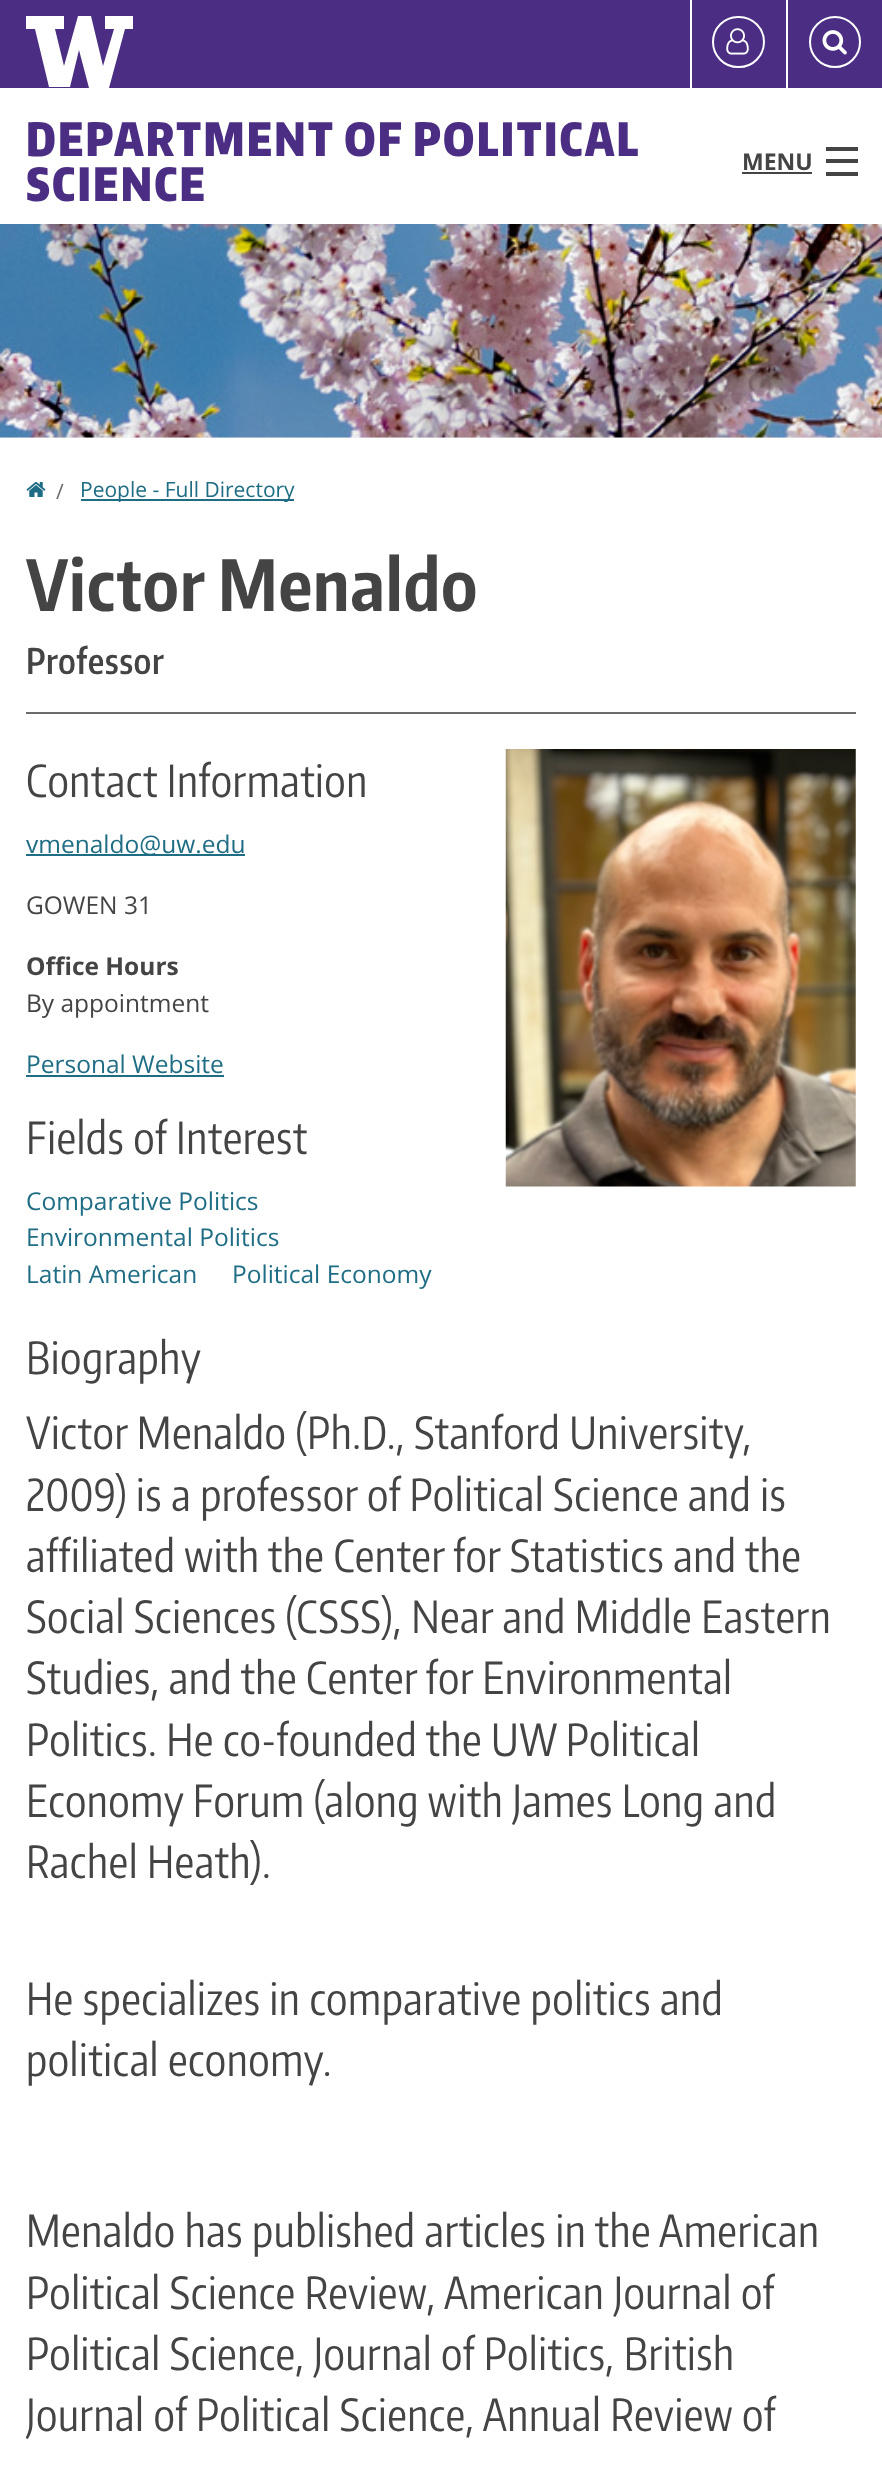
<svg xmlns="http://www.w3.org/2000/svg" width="882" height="2472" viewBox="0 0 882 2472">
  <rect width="100%" height="100%" fill="rgb(255,255,255)"/>
  <rect x="0" y="0" width="882" height="88" fill="rgb(75,46,131)"/>
  <path d="M105 16V29H114L103 66L91 16H78L64 66L55 29H64V16H26V29H35L49 87H70L79 50L89 88H109L125 29H133V16Z" fill="rgb(255,255,255)"/>
  <rect x="690" y="0" width="2" height="88" fill="rgb(255,255,255)"/>
  <rect x="713" y="17" width="51" height="50" rx="25" fill="none" stroke="rgb(255,255,255)" stroke-width="2"/>
  <image x="726" y="28" width="23" height="27" href="pic1.png"/>
  <rect x="786" y="0" width="2" height="88" fill="rgb(255,255,255)"/>
  <circle cx="835" cy="42" r="25" fill="none" stroke="rgb(255,255,255)" stroke-width="2"/>
  <image x="822" y="30" width="25" height="25" href="pic2.png"/>
  <g font-family="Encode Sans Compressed" font-size="45.5" font-weight="900" letter-spacing="2.25" fill="rgb(75,46,131)">
    <text>
      <tspan x="26" y="156">DEPARTMENT OF POLITICAL</tspan>
      <tspan x="26" y="201">SCIENCE</tspan>
    </text>
  </g>
  <text x="742" y="170" font-family="Open Sans" font-size="23" font-weight="bold" fill="rgb(68,68,68)">MENU</text>
  <rect x="742" y="172" width="70" height="2" fill="rgb(68,68,68)"/>
  <rect x="826" y="172" width="32" height="4" fill="rgb(68,68,68)"/>
  <rect x="826" y="159" width="32" height="4" fill="rgb(68,68,68)"/>
  <rect x="826" y="147" width="32" height="4" fill="rgb(68,68,68)"/>
  <rect x="0" y="437" width="882" height="1" fill="rgb(239,239,239)"/>
  <image x="0" y="224" width="882" height="214" href="pic3.png"/>
  <image x="26" y="482" width="20" height="15" href="pic4.png"/>
  <text x="56" y="499" font-family="Open Sans" font-size="21" fill="rgb(107,107,107)">/</text>
  <rect x="81" y="499" width="213" height="2" fill="rgb(30,109,133)"/>
  <text x="80" y="497" font-family="Open Sans" font-size="21" fill="rgb(30,109,133)">People - Full Directory</text>
  <text x="26" y="611" font-family="Encode Sans Compressed" font-size="70" font-weight="bold" letter-spacing="0.9" fill="rgb(68,68,68)">Victor Menaldo</text>
  <text x="26" y="674" font-family="Encode Sans Compressed" font-size="35" font-weight="600" letter-spacing="0.55" fill="rgb(68,68,68)">Professor</text>
  <rect x="26" y="712" width="830" height="2" fill="rgb(107,107,107)"/>
  <text x="26" y="797" font-family="Encode Sans Compressed" font-size="43.75" letter-spacing="0.55" fill="rgb(68,68,68)">Contact Information</text>
  <rect x="26" y="854" width="219" height="2" fill="rgb(30,109,133)"/>
  <text x="26" y="853" font-family="Open Sans" font-size="24.5" fill="rgb(30,109,133)">vmenaldo@uw.edu</text>
  <text x="26" y="914" font-family="Open Sans" font-size="24.5" fill="rgb(68,68,68)">GOWEN 31</text>
  <text x="26" y="975" font-family="Open Sans" font-size="24.5" font-weight="bold" fill="rgb(68,68,68)">Office Hours</text>
  <text x="26" y="1012" font-family="Open Sans" font-size="24.5" fill="rgb(68,68,68)">By appointment</text>
  <text x="26" y="1073" font-family="Open Sans" font-size="24.5" fill="rgb(30,109,133)">Personal Website</text>
  <rect x="26" y="1075" width="198" height="2" fill="rgb(30,109,133)"/>
  <image x="505" y="749" width="351" height="438" href="pic5.png"/>
  <text x="26" y="1154" font-family="Encode Sans Compressed" font-size="43.75" letter-spacing="0.55" fill="rgb(68,68,68)">Fields of Interest</text>
  <g font-family="Open Sans" font-size="24.5" fill="rgb(30,109,133)">
    <text>
      <tspan x="26" y="1210">Comparative Politics</tspan>
      <tspan x="26" y="1246">Environmental Politics</tspan>
      <tspan x="26" y="1283">Latin American</tspan>
    </text>
    <text x="232" y="1283">Political Economy</text>
  </g>
  <g font-family="Encode Sans Compressed" font-size="43.75" letter-spacing="0.55" fill="rgb(68,68,68)">
    <text>
      <tspan x="26" y="1374">Biography</tspan>
      <tspan x="26" y="1449">Victor Menaldo (Ph.D., Stanford University,</tspan>
      <tspan x="26" y="1511">2009) is a professor of Political Science and is</tspan>
      <tspan x="26" y="1572">affiliated with the Center for Statistics and the</tspan>
      <tspan x="26" y="1633">Social Sciences (CSSS), Near and Middle Eastern</tspan>
      <tspan x="26" y="1694">Studies, and the Center for Environmental</tspan>
      <tspan x="26" y="1756">Politics. He co-founded the UW Political</tspan>
      <tspan x="26" y="1817">Economy Forum (along with James Long and</tspan>
      <tspan x="26" y="1878">Rachel Heath).</tspan>
    </text>
    <text>
      <tspan x="26" y="2015">He specializes in comparative politics and</tspan>
      <tspan x="26" y="2076">political economy.</tspan>
    </text>
    <text>
      <tspan x="26" y="2247">Menaldo has published articles in the American</tspan>
      <tspan x="26" y="2309">Political Science Review, American Journal of</tspan>
      <tspan x="26" y="2370">Political Science, Journal of Politics, British</tspan>
      <tspan x="26" y="2431">Journal of Political Science, Annual Review of</tspan>
    </text>
  </g>
</svg>
